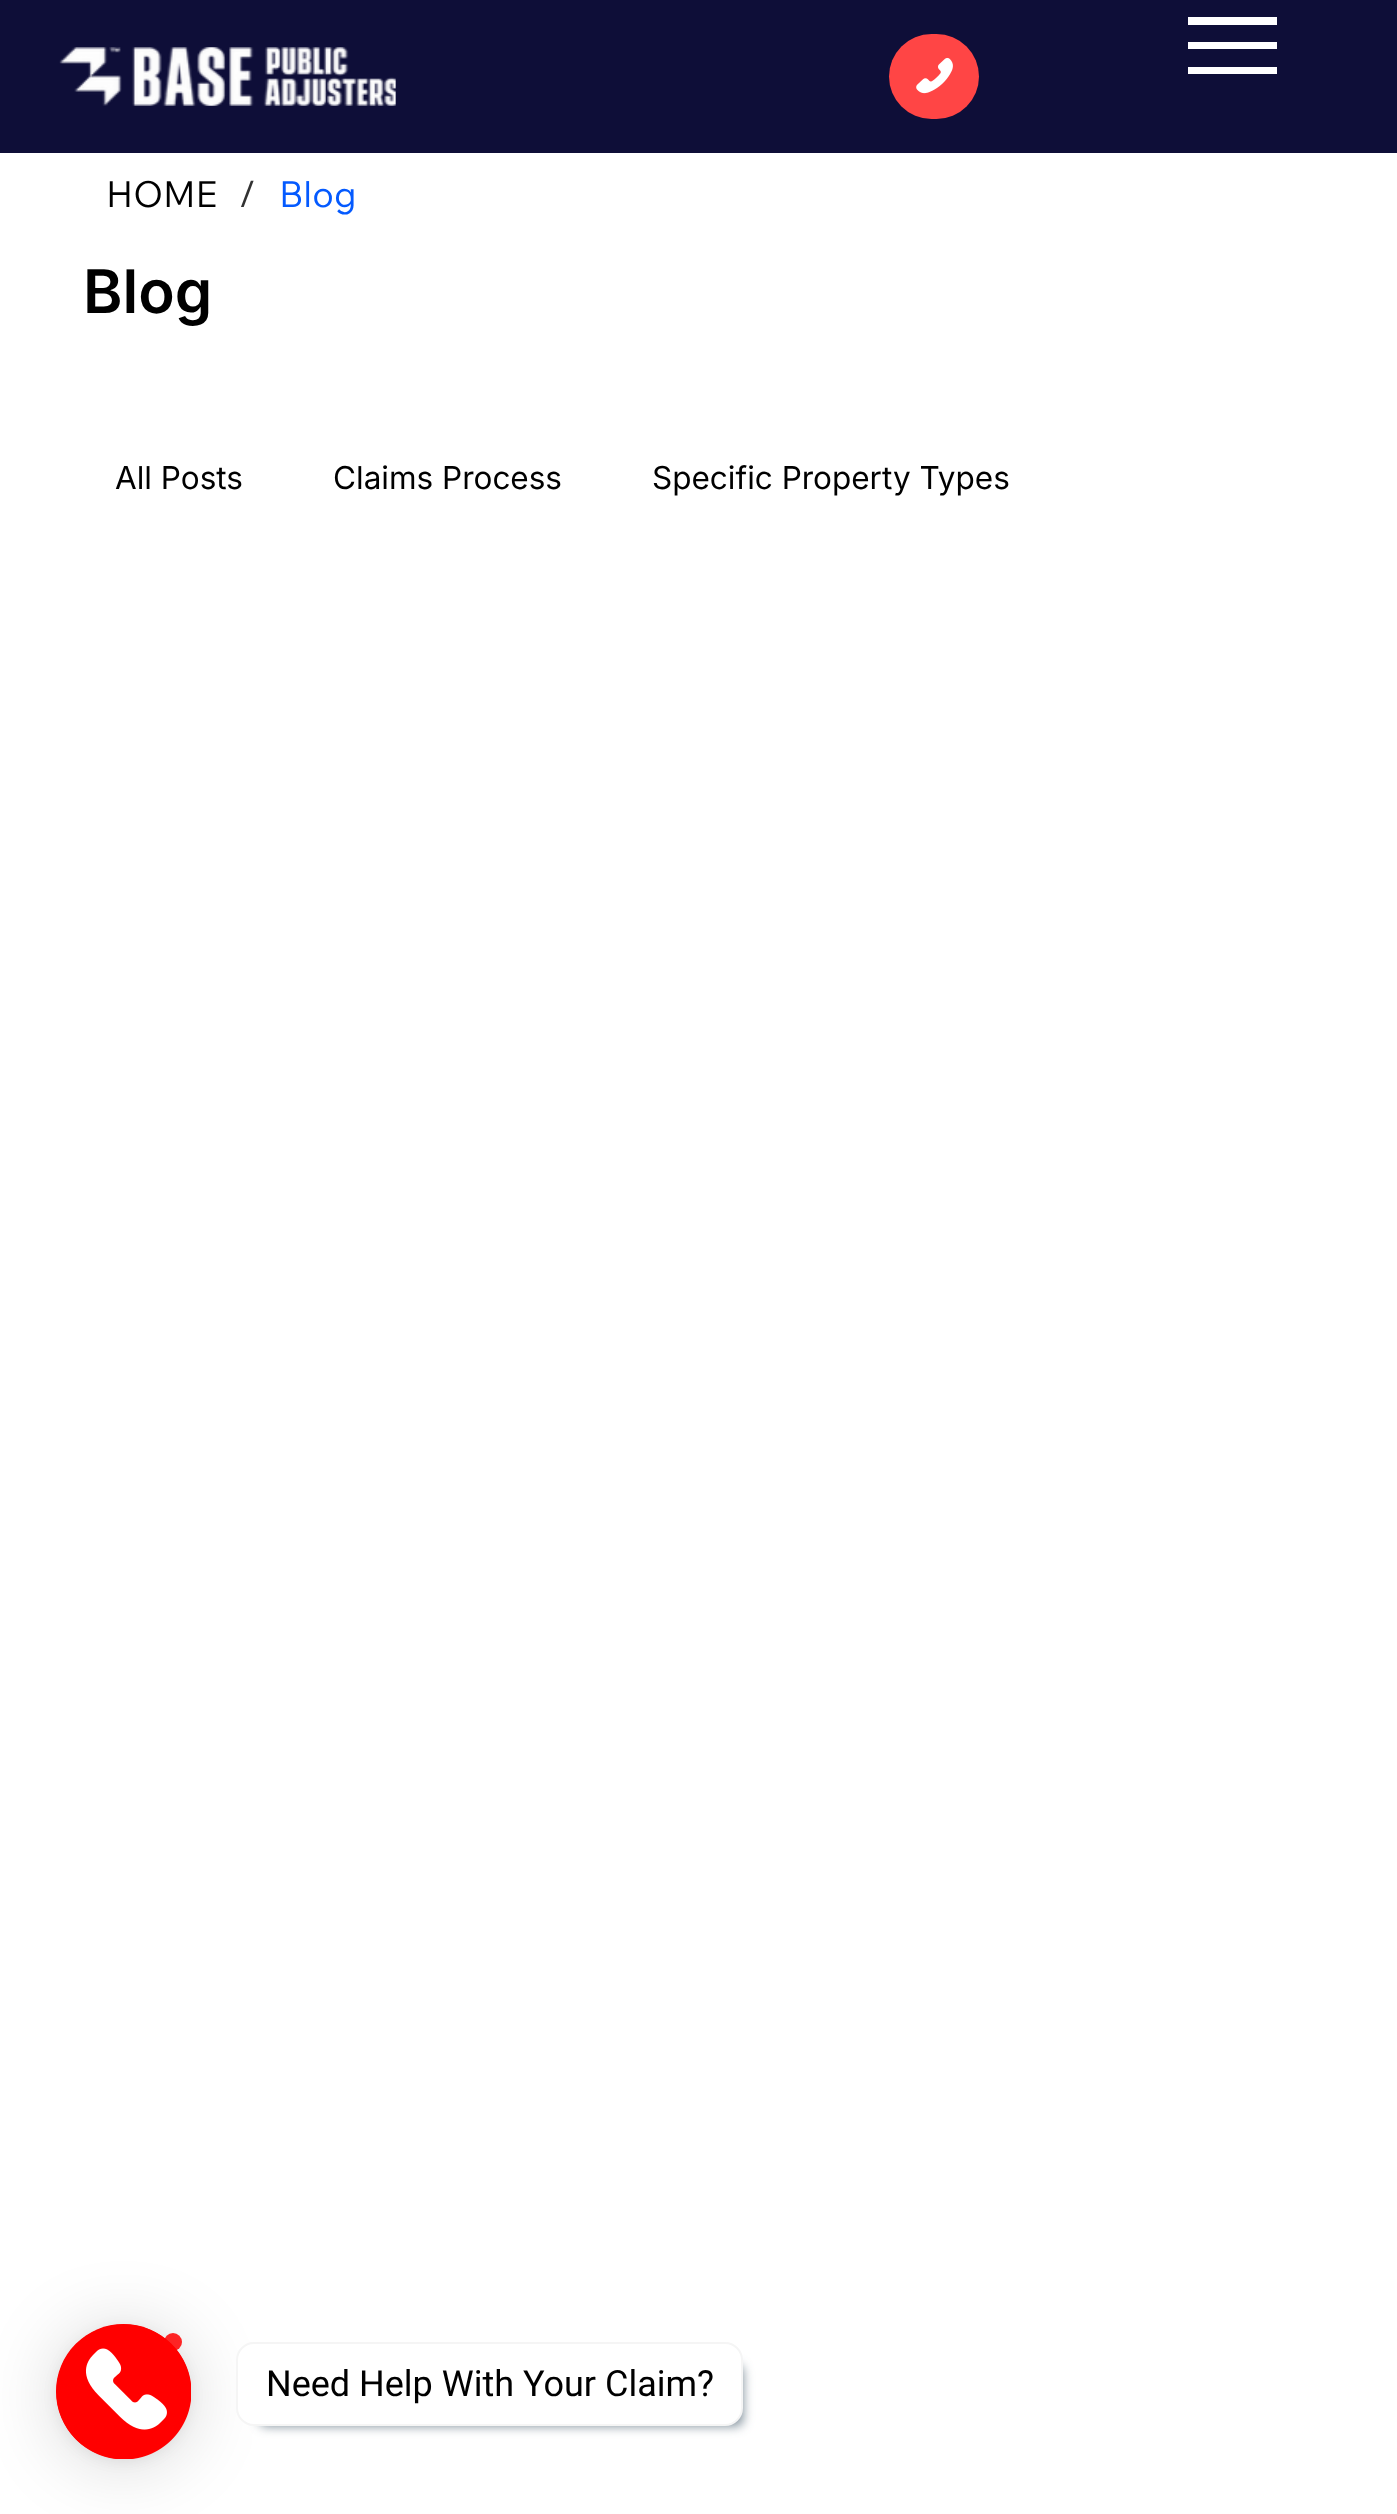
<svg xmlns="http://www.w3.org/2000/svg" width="1397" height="2514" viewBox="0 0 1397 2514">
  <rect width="100%" height="100%" fill="rgb(255,255,255)"/>
  <rect x="0" y="0" width="1397" height="153" fill="rgb(14,14,56)"/>
  <image x="59" y="47" width="337" height="59" href="pic1.png"/>
  <rect x="889" y="34" width="90" height="85" rx="42.5" fill="rgb(255,69,69)"/>
  <image x="916" y="57" width="37" height="37" href="pic2.png"/>
  <rect x="1188" y="67" width="89" height="7" fill="rgb(255,255,255)"/>
  <rect x="1188" y="17" width="89" height="8" fill="rgb(255,255,255)"/>
  <rect x="1188" y="42" width="89" height="7" fill="rgb(255,255,255)"/>
  <text x="106" y="207" font-family="Wix Madefor Text" font-size="36" fill="rgb(0,0,0)">HOME</text>
  <text x="239" y="207" font-family="Wix Madefor Text" font-size="36" fill="rgb(50,50,50)">/</text>
  <text x="279" y="207" font-family="Wix Madefor Text" font-size="36" fill="rgb(4,90,255)">Blog</text>
  <text x="83" y="313" font-family="Inter" font-size="60" font-weight="600" fill="rgb(0,0,0)">Blog</text>
  <g font-family="Inter" font-size="31.5" fill="rgb(0,0,0)">
    <text x="115" y="489">All Posts</text>
    <text x="333" y="489">Claims Process</text>
    <text x="652" y="489">Specific Property Types</text>
  </g>
  <rect x="56" y="2329" width="135" height="135" rx="67.5" fill="rgba(0,0,0,0.16)" filter="blur(36px)"/>
  <rect x="56" y="2327" width="135" height="135" rx="67.5" fill="rgba(0,0,0,0.06)" filter="blur(7px)"/>
  <circle cx="123.5" cy="2391.5" r="67.5" fill="rgb(255,0,0)"/>
  <image x="56" y="2324" width="135" height="135" href="pic3.png"/>
  <circle cx="173" cy="2342" r="9" fill="rgba(255,0,0,0.85)"/>
  <rect x="259" y="2365" width="484" height="61" rx="7" fill="rgba(34,60,80,0.6)" filter="blur(5.5px)"/>
  <rect x="237" y="2343" width="505" height="82" rx="17" fill="rgb(255,255,255)" stroke="rgb(245,245,245)" stroke-width="2"/>
  <text x="266" y="2396" font-family="Roboto" font-size="36" fill="rgb(0,0,0)">Need Help With Your Claim?</text>
</svg>
